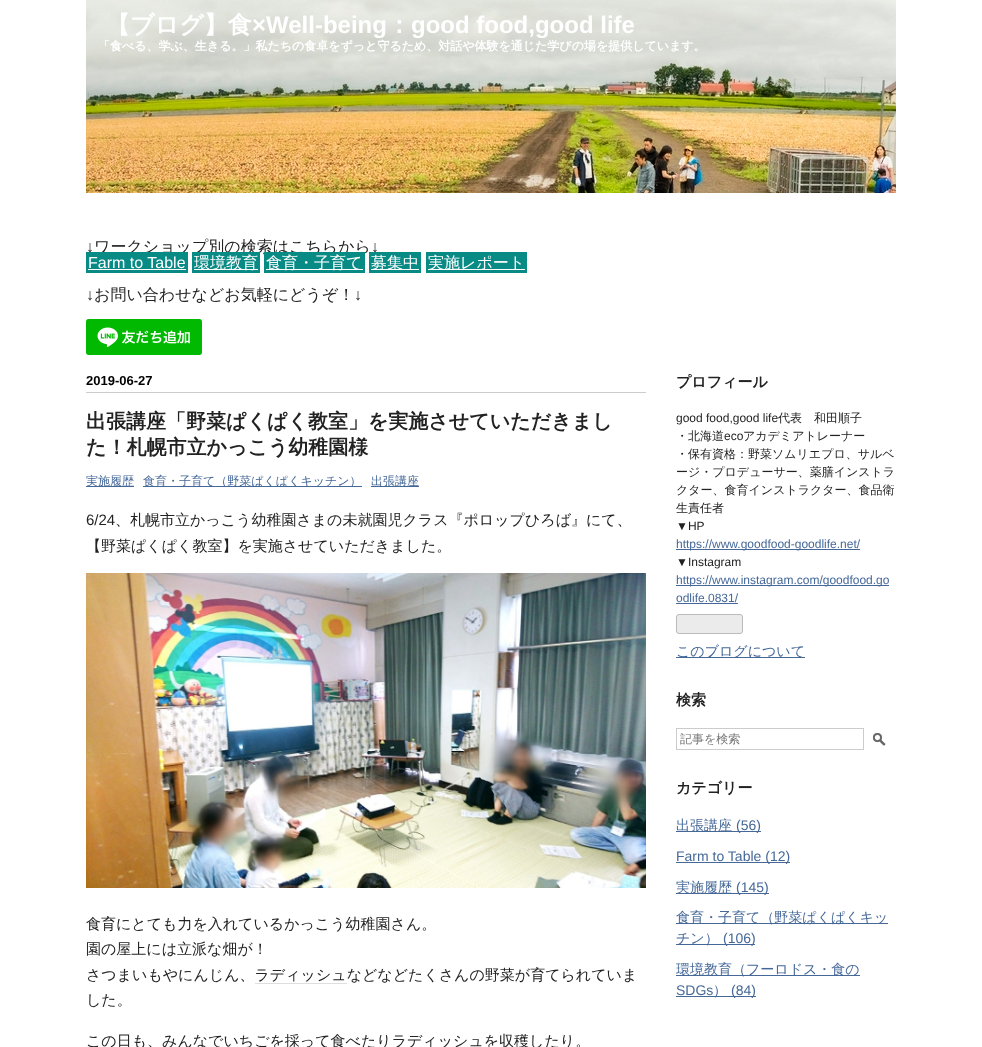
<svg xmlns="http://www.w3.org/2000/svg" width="982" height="1047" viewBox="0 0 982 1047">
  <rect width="100%" height="100%" fill="rgb(255,255,255)"/>
  <image x="86" y="0" width="810" height="193" href="pic1.png"/>
  <text x="106" y="33" font-family="WenQuanYi Zen Hei" font-size="24" font-weight="bold" fill="rgb(255,255,255)">【ブログ】食</text>
  <text x="252" y="33" font-family="Liberation Sans" font-size="24" font-weight="bold" fill="rgb(255,255,255)">×Well-being</text>
  <text x="387" y="33" font-family="WenQuanYi Zen Hei" font-size="24" font-weight="bold" fill="rgb(255,255,255)">：</text>
  <text x="411" y="33" font-family="Liberation Sans" font-size="24" font-weight="bold" fill="rgb(255,255,255)">good food,good life</text>
  <text x="98" y="50" font-family="WenQuanYi Zen Hei" font-size="12" font-weight="bold" fill="rgb(255,255,255)">「食べる、学ぶ、生きる。」私たちの食卓をずっと守るため、対話や体験を通じた学びの場を提供しています。</text>
  <text x="86" y="252" font-family="Liberation Sans" font-size="16" fill="rgb(34,34,34)">↓</text>
  <text x="94" y="252" font-family="WenQuanYi Zen Hei" font-size="16" font-weight="500" fill="rgb(34,34,34)">ワークショップ別の検索はこちらから</text>
  <text x="371" y="252" font-family="Liberation Sans" font-size="16" fill="rgb(34,34,34)">↓</text>
  <rect x="86" y="252" width="102" height="21" fill="rgb(8,138,133)"/>
  <text x="88" y="268" font-family="Liberation Sans" font-size="16" fill="rgb(255,255,255)">Farm to Table</text>
  <rect x="88" y="269" width="98" height="1" fill="rgb(255,255,255)"/>
  <rect x="192" y="252" width="68" height="21" fill="rgb(8,138,133)"/>
  <rect x="194" y="269" width="64" height="1" fill="rgb(255,255,255)"/>
  <text x="194" y="268" font-family="WenQuanYi Zen Hei" font-size="16" font-weight="500" fill="rgb(255,255,255)">環境教育</text>
  <rect x="264" y="252" width="101" height="21" fill="rgb(8,138,133)"/>
  <rect x="266" y="269" width="97" height="1" fill="rgb(255,255,255)"/>
  <text x="266" y="268" font-family="WenQuanYi Zen Hei" font-size="16" font-weight="500" fill="rgb(255,255,255)">食育・子育て</text>
  <rect x="369" y="252" width="52" height="21" fill="rgb(8,138,133)"/>
  <rect x="371" y="269" width="48" height="1" fill="rgb(255,255,255)"/>
  <text x="371" y="268" font-family="WenQuanYi Zen Hei" font-size="16" font-weight="500" fill="rgb(255,255,255)">募集中</text>
  <rect x="426" y="252" width="101" height="21" fill="rgb(8,138,133)"/>
  <rect x="428" y="269" width="97" height="1" fill="rgb(255,255,255)"/>
  <text x="428" y="268" font-family="WenQuanYi Zen Hei" font-size="16" font-weight="500" fill="rgb(255,255,255)">実施レポート</text>
  <text x="86" y="300" font-family="Liberation Sans" font-size="16" fill="rgb(34,34,34)">↓</text>
  <text x="94" y="300" font-family="WenQuanYi Zen Hei" font-size="16" font-weight="500" fill="rgb(34,34,34)">お問い合わせなどお気軽にどうぞ！</text>
  <text x="354" y="300" font-family="Liberation Sans" font-size="16" fill="rgb(34,34,34)">↓</text>
  <image x="86" y="319" width="116" height="36" href="pic2.png"/>
  <rect x="86" y="392" width="560" height="1" fill="rgb(204,204,204)"/>
  <text x="86" y="385" font-family="Liberation Sans" font-size="13" font-weight="bold" fill="rgb(0,0,0)">2019-06-27</text>
  <g font-family="WenQuanYi Zen Hei" font-size="20" font-weight="bold" fill="rgb(34,34,34)">
    <text>
      <tspan x="86" y="428">出張講座「野菜ぱくぱく教室」を実施させていただきまし</tspan>
      <tspan x="86" y="454">た！札幌市立かっこう幼稚園様</tspan>
    </text>
  </g>
  <rect x="86" y="486" width="48" height="1" fill="rgb(69,104,152)"/>
  <text x="86" y="485" font-family="WenQuanYi Zen Hei" font-size="12" font-weight="500" fill="rgb(69,104,152)">実施履歴</text>
  <rect x="143" y="486" width="219" height="1" fill="rgb(69,104,152)"/>
  <text x="143" y="485" font-family="WenQuanYi Zen Hei" font-size="12" font-weight="500" fill="rgb(69,104,152)">食育・子育て（野菜ぱくぱくキッチン）</text>
  <rect x="371" y="486" width="48" height="1" fill="rgb(69,104,152)"/>
  <text x="371" y="485" font-family="WenQuanYi Zen Hei" font-size="12" font-weight="500" fill="rgb(69,104,152)">出張講座</text>
  <text x="86" y="525" font-family="Liberation Sans" font-size="15" fill="rgb(34,34,34)">6/24</text>
  <g font-family="WenQuanYi Zen Hei" font-size="15" font-weight="500" fill="rgb(34,34,34)">
    <text x="115" y="525">、札幌市立かっこう幼稚園さまの未就園児クラス『ポロップひろば』にて、</text>
    <text x="86" y="551">【野菜ぱくぱく教室】を実施させていただきました。</text>
  </g>
  <image x="86" y="573" width="560" height="315" href="pic3.png"/>
  <g font-family="WenQuanYi Zen Hei" font-size="15" font-weight="500" fill="rgb(34,34,34)">
    <text>
      <tspan x="86" y="929">食育にとても力を入れているかっこう幼稚園さん。</tspan>
      <tspan x="86" y="954">園の屋上には立派な畑が！</tspan>
      <tspan x="86" y="980">さつまいもやにんじん、ラディッシュなどなどたくさんの野菜が育てられていま</tspan>
    </text>
  </g>
  <rect x="255" y="983" width="92" height="1" fill="rgb(222,222,222)"/>
  <g font-family="WenQuanYi Zen Hei" font-size="15" font-weight="500" fill="rgb(34,34,34)">
    <text x="86" y="1005">した。</text>
    <text x="86" y="1046">この日も、みんなでいちごを採って食べたりラディッシュを収穫したり。</text>
  </g>
  <text x="676" y="387" font-family="WenQuanYi Zen Hei" font-size="15" font-weight="bold" fill="rgb(34,34,34)">プロフィール</text>
  <text x="676" y="422" font-family="Liberation Sans" font-size="12" fill="rgb(34,34,34)">good food,good life</text>
  <g font-family="WenQuanYi Zen Hei" font-size="12" font-weight="500" fill="rgb(34,34,34)">
    <text x="778" y="422">代表　和田順子</text>
    <text x="676" y="440">・北海道</text>
  </g>
  <text x="724" y="440" font-family="Liberation Sans" font-size="12" fill="rgb(34,34,34)">eco</text>
  <g font-family="WenQuanYi Zen Hei" font-size="12" font-weight="500" fill="rgb(34,34,34)">
    <text x="743" y="440">アカデミアトレーナー</text>
    <text>
      <tspan x="676" y="458">・保有資格：野菜ソムリエプロ、サルベ</tspan>
      <tspan x="676" y="476">ージ・プロデューサー、薬膳インストラ</tspan>
      <tspan x="676" y="494">クター、食育インストラクター、食品衛</tspan>
      <tspan x="676" y="512">生責任者</tspan>
    </text>
  </g>
  <text x="676" y="530" font-family="Liberation Sans" font-size="12" fill="rgb(34,34,34)">▼HP</text>
  <rect x="676" y="549" width="184" height="1" fill="rgb(69,104,152)"/>
  <text x="676" y="548" font-family="Liberation Sans" font-size="12" fill="rgb(69,104,152)">https://www.goodfood-goodlife.net/</text>
  <text x="676" y="566" font-family="Liberation Sans" font-size="12" fill="rgb(34,34,34)">▼Instagram</text>
  <rect x="676" y="585" width="213" height="1" fill="rgb(69,104,152)"/>
  <g font-family="Liberation Sans" font-size="12" fill="rgb(69,104,152)">
    <text>
      <tspan x="676" y="584">https://www.instagram.com/goodfood.go</tspan>
      <tspan x="676" y="602">odlife.0831/</tspan>
    </text>
  </g>
  <rect x="676" y="603" width="62" height="1" fill="rgb(69,104,152)"/>
  <rect x="676.5" y="614.5" width="66" height="19" rx="2.5" fill="rgb(235,235,235)" stroke="rgb(187,187,187)"/>
  <rect x="676" y="657" width="129" height="1" fill="rgb(69,104,152)"/>
  <text x="676" y="656" font-family="WenQuanYi Zen Hei" font-size="14" font-weight="500" fill="rgb(69,104,152)">このブログについて</text>
  <text x="676" y="705" font-family="WenQuanYi Zen Hei" font-size="15" font-weight="bold" fill="rgb(34,34,34)">検索</text>
  <rect x="676.5" y="728.5" width="187" height="21" fill="none" stroke="rgb(204,204,204)"/>
  <text x="680" y="743" font-family="WenQuanYi Zen Hei" font-size="12" font-weight="500" fill="rgb(117,117,117)">記事を検索</text>
  <image x="873" y="733" width="13" height="13" href="pic4.png"/>
  <text x="676" y="793" font-family="WenQuanYi Zen Hei" font-size="15" font-weight="bold" fill="rgb(34,34,34)">カテゴリー</text>
  <rect x="676" y="831" width="85" height="1" fill="rgb(69,104,152)"/>
  <text x="676" y="830" font-family="WenQuanYi Zen Hei" font-size="14" font-weight="500" fill="rgb(69,104,152)">出張講座</text>
  <text x="736" y="830" font-family="Liberation Sans" font-size="14" fill="rgb(69,104,152)">(56)</text>
  <rect x="676" y="862" width="114" height="1" fill="rgb(69,104,152)"/>
  <text x="676" y="861" font-family="Liberation Sans" font-size="14" fill="rgb(69,104,152)">Farm to Table (12)</text>
  <rect x="676" y="893" width="93" height="1" fill="rgb(69,104,152)"/>
  <text x="676" y="892" font-family="WenQuanYi Zen Hei" font-size="14" font-weight="500" fill="rgb(69,104,152)">実施履歴</text>
  <text x="736" y="892" font-family="Liberation Sans" font-size="14" fill="rgb(69,104,152)">(145)</text>
  <rect x="676" y="923" width="212" height="1" fill="rgb(69,104,152)"/>
  <text x="676" y="922" font-family="WenQuanYi Zen Hei" font-size="14" font-weight="500" fill="rgb(69,104,152)">食育・子育て（野菜ぱくぱくキッ</text>
  <rect x="676" y="944" width="79" height="1" fill="rgb(69,104,152)"/>
  <text x="676" y="943" font-family="WenQuanYi Zen Hei" font-size="14" font-weight="500" fill="rgb(69,104,152)">チン）</text>
  <text x="723" y="943" font-family="Liberation Sans" font-size="14" fill="rgb(69,104,152)">(106)</text>
  <rect x="676" y="975" width="184" height="1" fill="rgb(69,104,152)"/>
  <text x="676" y="974" font-family="WenQuanYi Zen Hei" font-size="14" font-weight="500" fill="rgb(69,104,152)">環境教育（フーロドス・食の</text>
  <text x="676" y="995" font-family="Liberation Sans" font-size="14" fill="rgb(69,104,152)">SDGs</text>
  <rect x="676" y="996" width="80" height="1" fill="rgb(69,104,152)"/>
  <text x="713" y="995" font-family="WenQuanYi Zen Hei" font-size="14" font-weight="500" fill="rgb(69,104,152)">）</text>
  <text x="731" y="995" font-family="Liberation Sans" font-size="14" fill="rgb(69,104,152)">(84)</text>
</svg>
